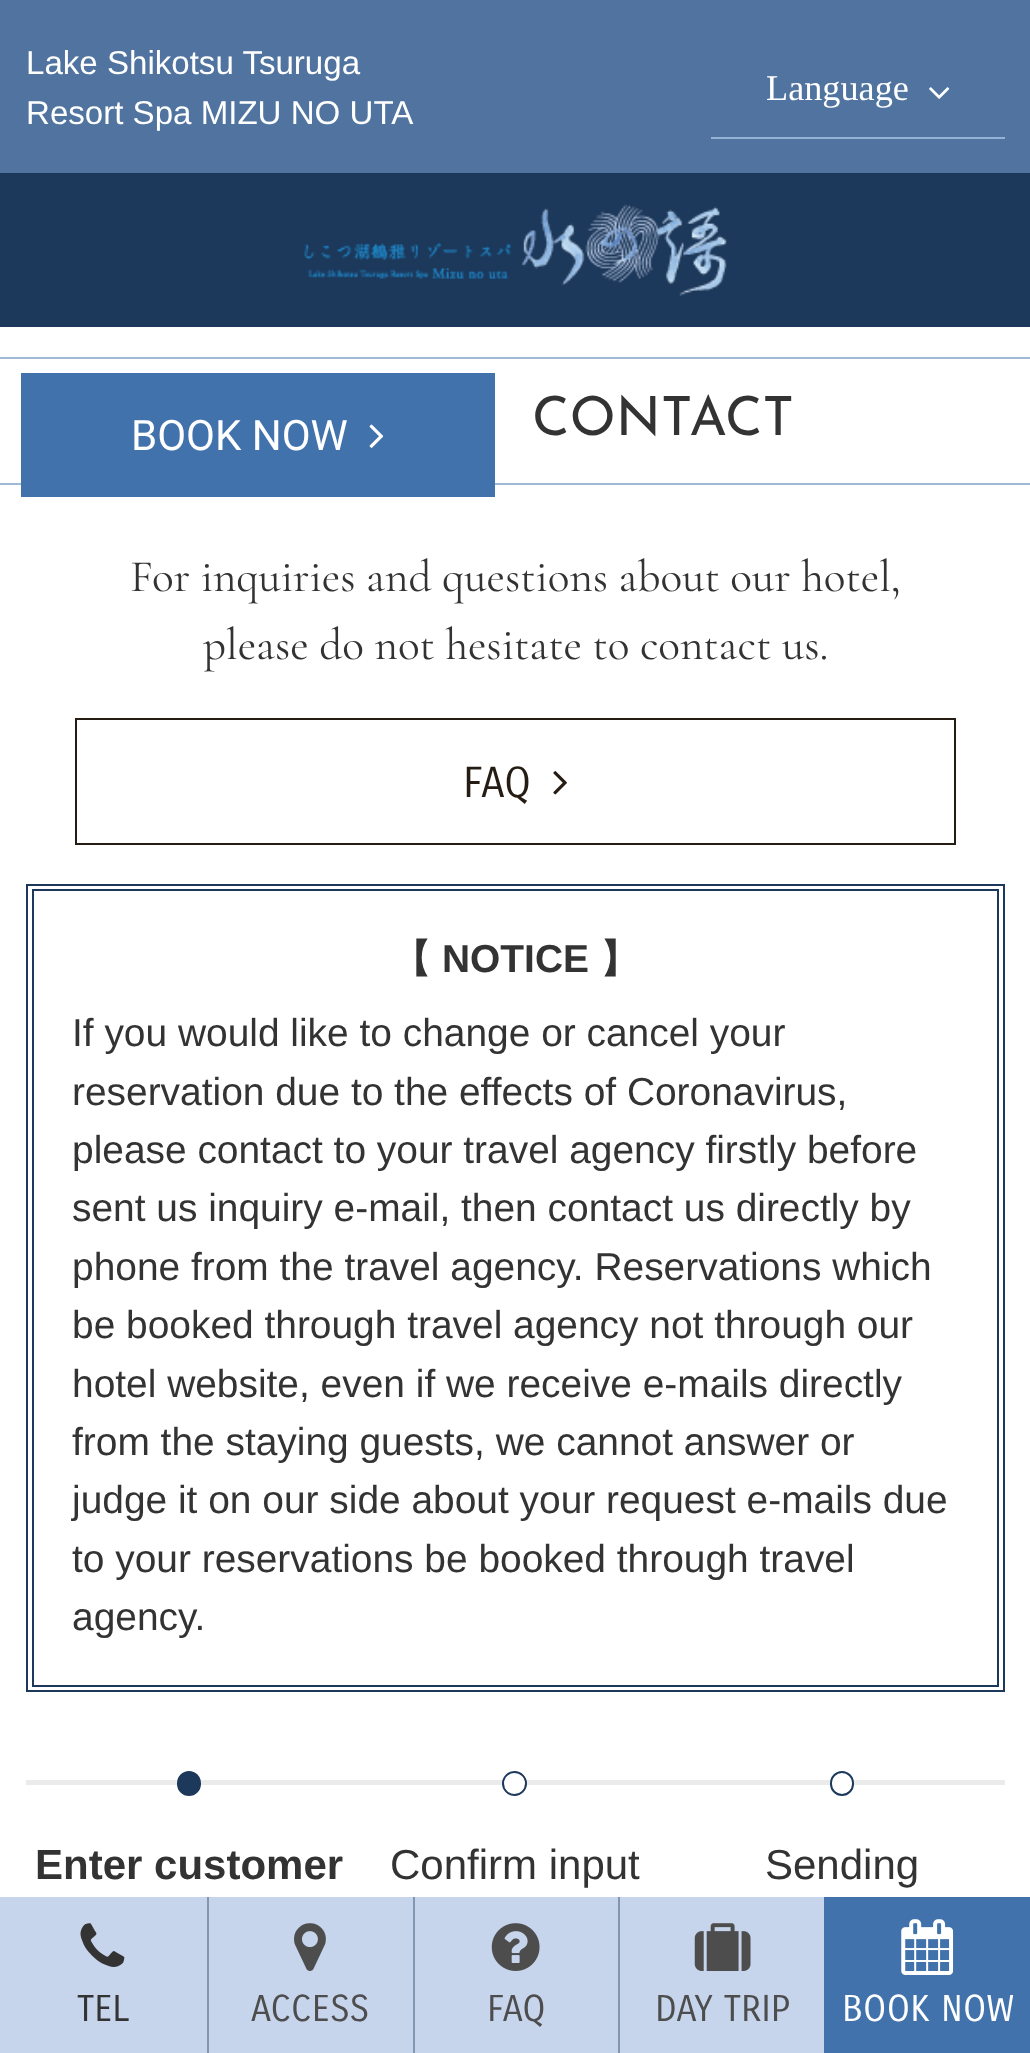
<svg xmlns="http://www.w3.org/2000/svg" width="1030" height="2053" viewBox="0 0 1030 2053">
  <rect width="100%" height="100%" fill="rgb(255,255,255)"/>
  <rect x="0" y="0" width="1030" height="173" fill="rgb(80,116,159)"/>
  <g font-family="Liberation Sans" font-size="33.1" fill="rgb(255,255,255)">
    <text>
      <tspan x="26" y="74">Lake Shikotsu Tsuruga</tspan>
      <tspan x="26" y="124">Resort Spa MIZU NO UTA</tspan>
    </text>
  </g>
  <rect x="711" y="137" width="294" height="2" fill="rgb(149,179,215)"/>
  <text x="766" y="100" font-family="Liberation Serif" font-size="36.25" fill="rgb(255,255,255)">Language</text>
  <image x="929" y="87" width="21" height="12" href="pic1.png"/>
  <rect x="0" y="173" width="1030" height="154" fill="rgb(28,56,90)"/>
  <image x="304" y="204" width="423" height="92" href="pic2.png"/>
  <rect x="0" y="357" width="1030" height="2" fill="rgb(160,185,214)"/>
  <rect x="0" y="483" width="1030" height="2" fill="rgb(160,185,214)"/>
  <rect x="21" y="373" width="474" height="124" fill="rgb(65,114,172)"/>
  <text x="131" y="450" font-family="Roboto" font-size="42" fill="rgb(255,255,255)">BOOK NOW</text>
  <image x="369" y="424" width="15" height="24" href="pic3.png"/>
  <text x="532" y="435" font-family="Josefin Sans" font-size="54" font-weight="100" fill="rgb(51,51,51)">CONTACT</text>
  <g font-family="Cormorant Garamond" font-size="45.2" fill="rgb(51,51,51)">
    <text x="130" y="591">For inquiries and questions about our hotel,</text>
    <text x="203" y="659">please do not hesitate to contact us.</text>
  </g>
  <rect x="76" y="719" width="879" height="125" fill="none" stroke="rgb(37,29,19)" stroke-width="2"/>
  <text x="463" y="797" font-family="Carrois Gothic SC" font-size="42" fill="rgb(37,29,19)">FAQ</text>
  <image x="553" y="771" width="14" height="24" href="pic4.png"/>
  <rect x="27" y="885" width="977" height="806" fill="none" stroke="rgb(28,56,90)" stroke-width="2"/>
  <rect x="33" y="890" width="965" height="796" fill="none" stroke="rgb(28,56,90)" stroke-width="2"/>
  <text x="392" y="972" font-family="WenQuanYi Zen Hei" font-size="38.9" font-weight="bold" fill="rgb(51,51,51)">【</text>
  <text x="442" y="972" font-family="Liberation Sans" font-size="38.9" font-weight="bold" fill="rgb(51,51,51)">NOTICE</text>
  <text x="600" y="972" font-family="WenQuanYi Zen Hei" font-size="38.9" font-weight="bold" fill="rgb(51,51,51)">】</text>
  <g font-family="Liberation Sans" font-size="38.9" fill="rgb(51,51,51)">
    <text>
      <tspan x="72" y="1046">If you would like to change or cancel your</tspan>
      <tspan x="72" y="1105">reservation due to the effects of Coronavirus,</tspan>
      <tspan x="72" y="1163">please contact to your travel agency firstly before</tspan>
      <tspan x="72" y="1221">sent us inquiry e-mail, then contact us directly by</tspan>
      <tspan x="72" y="1280">phone from the travel agency. Reservations which</tspan>
      <tspan x="72" y="1338">be booked through travel agency not through our</tspan>
      <tspan x="72" y="1397">hotel website, even if we receive e-mails directly</tspan>
      <tspan x="72" y="1455">from the staying guests, we cannot answer or</tspan>
      <tspan x="72" y="1513">judge it on our side about your request e-mails due</tspan>
      <tspan x="72" y="1572">to your reservations be booked through travel</tspan>
      <tspan x="72" y="1630">agency.</tspan>
    </text>
  </g>
  <rect x="26" y="1780" width="979" height="5" fill="rgb(235,235,235)"/>
  <rect x="178" y="1772" width="22" height="23" rx="11" fill="rgb(28,56,90)" stroke="rgb(28,56,90)" stroke-width="2"/>
  <text x="35" y="1879" font-family="Liberation Sans" font-size="42" font-weight="bold" fill="rgb(51,51,51)">Enter customer</text>
  <circle cx="514.5" cy="1783.5" r="11.5" fill="rgb(255,255,255)" stroke="rgb(28,56,90)" stroke-width="2"/>
  <text x="390" y="1879" font-family="Liberation Sans" font-size="42" fill="rgb(51,51,51)">Confirm input</text>
  <rect x="831" y="1772" width="22" height="23" rx="11" fill="rgb(255,255,255)" stroke="rgb(28,56,90)" stroke-width="2"/>
  <text x="765" y="1879" font-family="Liberation Sans" font-size="42" fill="rgb(51,51,51)">Sending</text>
  <rect x="0" y="1897" width="207" height="156" fill="rgb(198,212,236)"/>
  <image x="80" y="1923" width="45" height="44" href="pic5.png"/>
  <text x="77" y="2021" font-family="Carrois Gothic SC" font-size="36.25" fill="rgb(51,51,51)">TEL</text>
  <rect x="209" y="1897" width="204" height="156" fill="rgb(198,212,236)"/>
  <rect x="207" y="1897" width="2" height="156" fill="rgb(130,150,178)"/>
  <image x="294" y="1923" width="32" height="48" href="pic6.png"/>
  <text x="251" y="2021" font-family="Carrois Gothic SC" font-size="36.25" fill="rgb(77,77,77)">ACCESS</text>
  <rect x="415" y="1897" width="203" height="156" fill="rgb(198,212,236)"/>
  <rect x="413" y="1897" width="2" height="156" fill="rgb(130,150,178)"/>
  <image x="491" y="1923" width="49" height="48" href="pic7.png"/>
  <text x="487" y="2021" font-family="Carrois Gothic SC" font-size="36.25" fill="rgb(77,77,77)">FAQ</text>
  <rect x="620" y="1897" width="204" height="156" fill="rgb(198,212,236)"/>
  <rect x="618" y="1897" width="2" height="156" fill="rgb(130,150,178)"/>
  <image x="694" y="1923" width="57" height="48" href="pic8.png"/>
  <text x="655" y="2021" font-family="Carrois Gothic SC" font-size="36.25" fill="rgb(77,77,77)">DAY TRIP</text>
  <rect x="824" y="1897" width="206" height="156" fill="rgb(65,114,172)"/>
  <image x="901" y="1919" width="53" height="56" href="pic9.png"/>
  <text x="842" y="2021" font-family="Carrois Gothic SC" font-size="36.25" fill="rgb(255,255,255)">BOOK NOW</text>
</svg>
